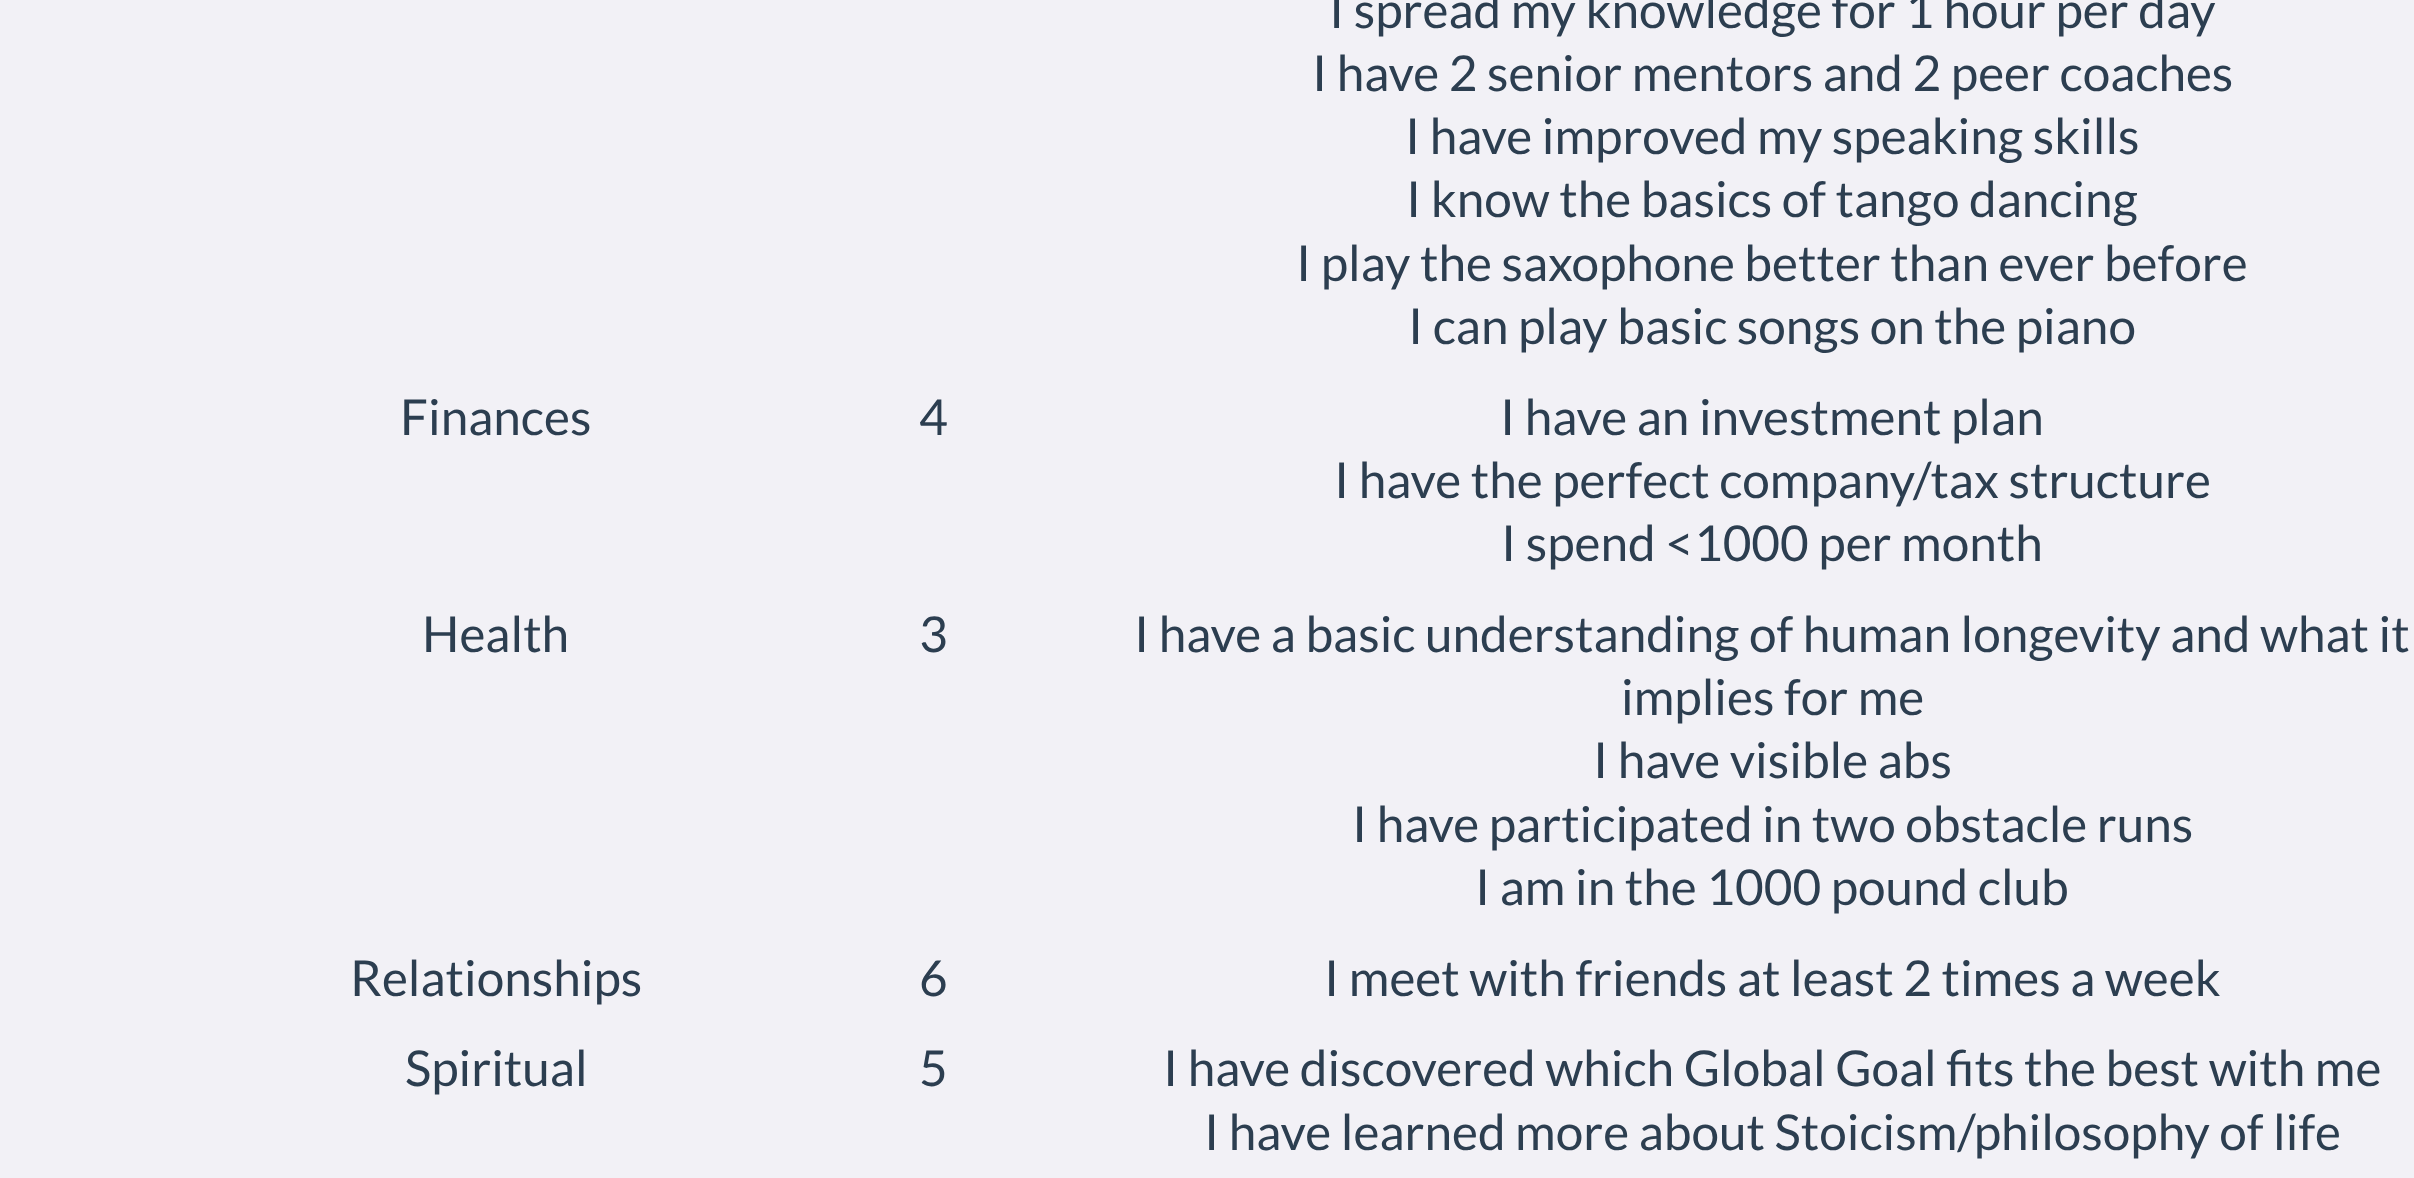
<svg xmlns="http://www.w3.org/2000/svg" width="2414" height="1178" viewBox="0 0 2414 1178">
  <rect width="100%" height="100%" fill="rgb(242,241,246)"/>
  <g font-family="Lato" font-size="49.5" fill="rgb(44,62,80)">
    <text x="1329" y="28">I spread my knowledge for 1 hour per day</text>
    <text x="1312" y="91">I have 2 senior mentors and 2 peer coaches</text>
    <text x="1405" y="154">I have improved my speaking skills</text>
    <text x="1406" y="217">I know the basics of tango dancing</text>
    <text x="1296" y="281">I play the saxophone better than ever before</text>
    <text x="1408" y="344">I can play basic songs on the piano</text>
    <text x="400" y="435">Finances</text>
    <text x="919" y="435">4</text>
    <text x="1500" y="435">I have an investment plan</text>
    <text x="1334" y="498">I have the perfect company/tax structure</text>
    <text x="1501" y="561">I spend &lt;1000 per month</text>
    <text x="422" y="652">Health</text>
    <text x="919" y="652">3</text>
    <text x="1134" y="652">I have a basic understanding of human longevity and what it</text>
    <text x="1621" y="715">implies for me</text>
    <text x="1593" y="778">I have visible abs</text>
    <text x="1352" y="842">I have participated in two obstacle runs</text>
    <text x="1475" y="905">I am in the 1000 pound club</text>
    <text x="350" y="996">Relationships</text>
    <text x="919" y="996">6</text>
    <text x="1324" y="996">I meet with friends at least 2 times a week</text>
    <text x="405" y="1086">Spiritual</text>
    <text x="919" y="1086">5</text>
    <text x="1163" y="1086">I have discovered which Global Goal fits the best with me</text>
    <text x="1204" y="1150">I have learned more about Stoicism/philosophy of life</text>
  </g>
</svg>
